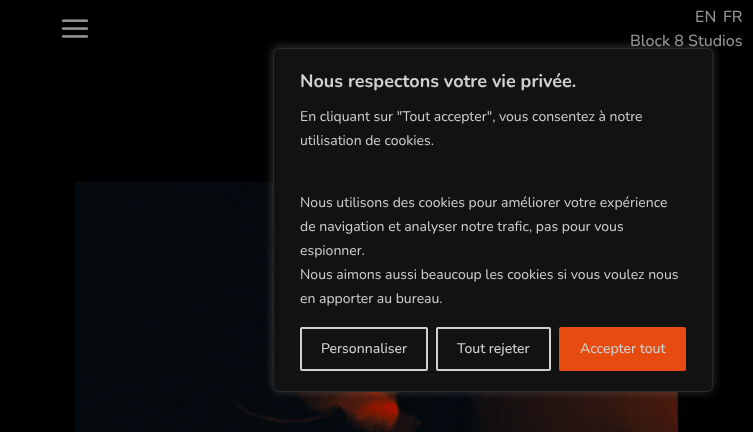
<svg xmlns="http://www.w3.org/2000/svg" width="753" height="432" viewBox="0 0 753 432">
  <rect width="100%" height="100%" fill="rgb(0,0,0)"/>
  <image x="61" y="19" width="28" height="19" href="pic1.png"/>
  <g font-family="Nunito" font-size="16" font-weight="500" fill="rgb(146,146,146)">
    <text x="695" y="22">EN</text>
    <text x="723" y="22">FR</text>
    <text x="630" y="46">Block 8 Studios</text>
  </g>
  <image x="75" y="182" width="603" height="250" href="pic2.png"/>
  <rect x="273" y="47" width="440" height="344" rx="6" fill="rgba(172,171,171,0.3)" filter="blur(5px)"/>
  <rect x="273.5" y="48.5" width="439" height="343" rx="5.5" fill="rgb(18,18,18)" stroke="rgb(42,42,42)"/>
  <text x="300" y="87" font-family="Nunito" font-size="18" font-weight="bold" fill="rgb(208,208,208)">Nous respectons votre vie privée.</text>
  <g font-family="Nunito" font-size="14" fill="rgb(208,208,208)">
    <text>
      <tspan x="300" y="121">En cliquant sur "Tout accepter", vous consentez à notre</tspan>
      <tspan x="300" y="145">utilisation de cookies.</tspan>
    </text>
    <text>
      <tspan x="300" y="207">Nous utilisons des cookies pour améliorer votre expérience</tspan>
      <tspan x="300" y="231">de navigation et analyser notre trafic, pas pour vous</tspan>
      <tspan x="300" y="255">espionner.</tspan>
      <tspan x="300" y="279">Nous aimons aussi beaucoup les cookies si vous voulez nous</tspan>
      <tspan x="300" y="303">en apporter au bureau.</tspan>
    </text>
  </g>
  <rect x="301" y="328" width="126" height="42" rx="1" fill="none" stroke="rgb(208,208,208)" stroke-width="2"/>
  <text x="321" y="353" font-family="Nunito" font-size="14" font-weight="500" fill="rgb(208,208,208)">Personnaliser</text>
  <rect x="437" y="328" width="113" height="42" rx="1" fill="none" stroke="rgb(208,208,208)" stroke-width="2"/>
  <text x="457" y="353" font-family="Nunito" font-size="14" font-weight="500" fill="rgb(208,208,208)">Tout rejeter</text>
  <rect x="560" y="328" width="125" height="42" rx="1" fill="rgb(232,75,15)" stroke="rgb(232,75,15)" stroke-width="2"/>
  <text x="580" y="353" font-family="Nunito" font-size="14" font-weight="500" fill="rgb(208,208,208)">Accepter tout</text>
</svg>
